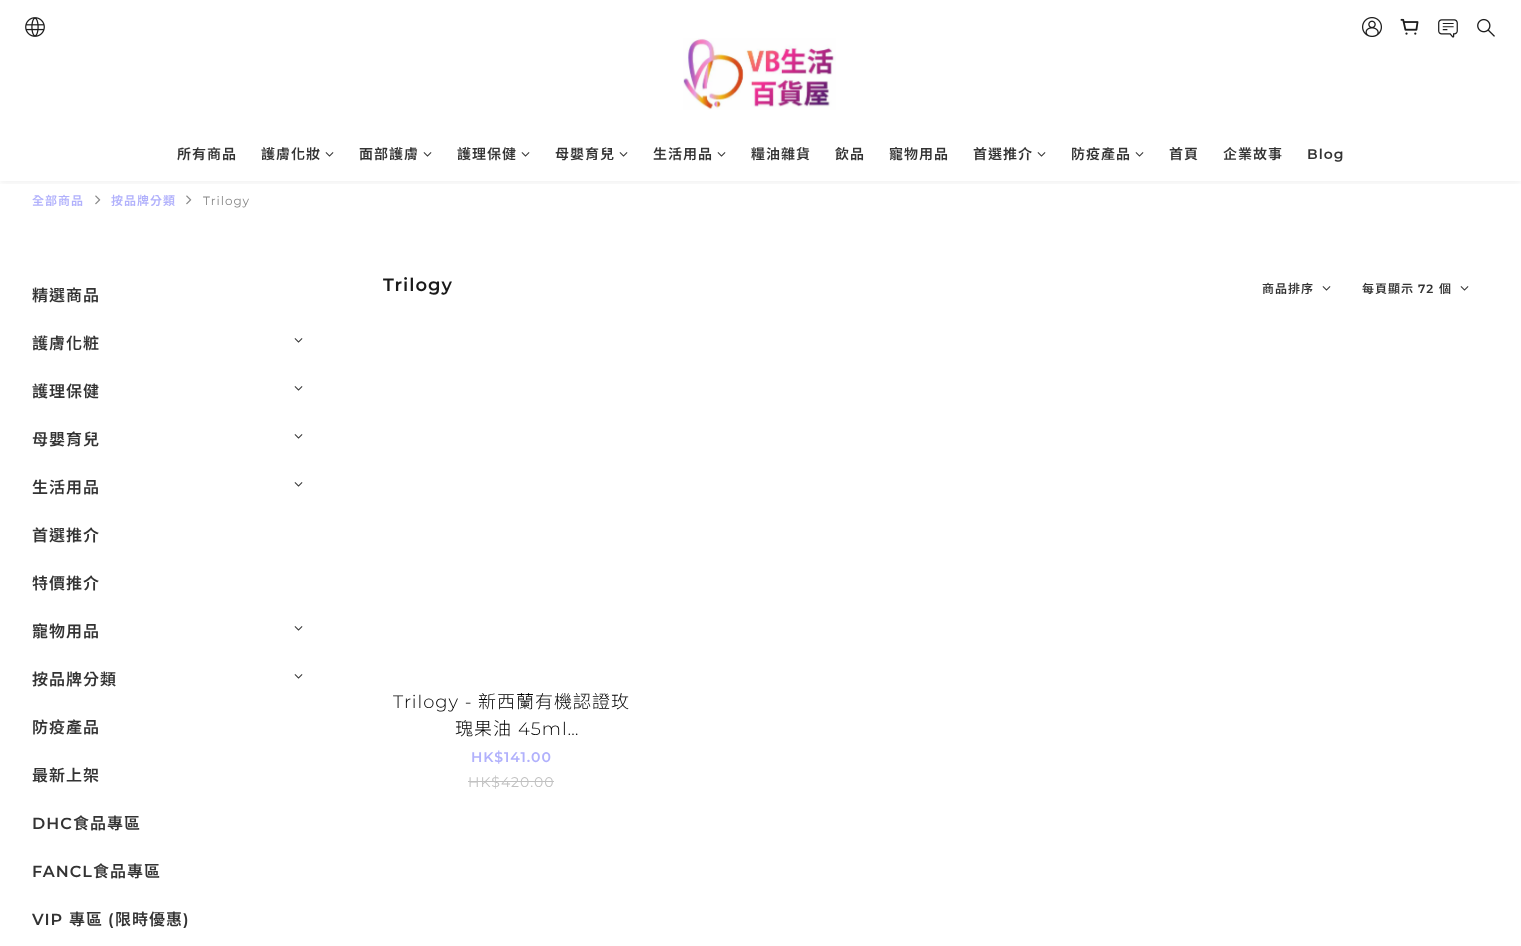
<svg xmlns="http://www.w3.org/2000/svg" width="1521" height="946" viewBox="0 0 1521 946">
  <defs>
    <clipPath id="clip1"><rect x="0" y="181" width="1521" height="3"/></clipPath>
  </defs>
  <rect width="100%" height="100%" fill="rgb(255,255,255)"/>
  <g clip-path="url(#clip1)">
    <rect x="0" y="2" width="1521" height="181" fill="rgba(0,0,0,0.06)" filter="blur(3px)"/>
  </g>
  <image x="25" y="17" width="20" height="20" href="pic1.png"/>
  <image x="1362" y="17" width="20" height="20" href="pic2.png"/>
  <image x="1400" y="18" width="19" height="17" href="pic3.png"/>
  <image x="1438" y="19" width="20" height="19" href="pic4.png"/>
  <image x="1477" y="18" width="18" height="19" href="pic5.png"/>
  <image x="683" y="38" width="153" height="72" href="pic6.png"/>
  <g font-family="Noto Sans TC" font-size="14" font-weight="600" letter-spacing="1" fill="rgb(51,51,51)">
    <text x="177" y="159">所有商品</text>
    <text x="261" y="159">護膚化妝</text>
  </g>
  <image x="325" y="152" width="9" height="5" href="pic7.png"/>
  <text x="359" y="159" font-family="Noto Sans TC" font-size="14" font-weight="600" letter-spacing="1" fill="rgb(51,51,51)">面部護膚</text>
  <image x="423" y="152" width="9" height="5" href="pic7.png"/>
  <text x="457" y="159" font-family="Noto Sans TC" font-size="14" font-weight="600" letter-spacing="1" fill="rgb(51,51,51)">護理保健</text>
  <image x="521" y="152" width="9" height="5" href="pic7.png"/>
  <text x="555" y="159" font-family="Noto Sans TC" font-size="14" font-weight="600" letter-spacing="1" fill="rgb(51,51,51)">母嬰育兒</text>
  <image x="619" y="152" width="9" height="5" href="pic7.png"/>
  <text x="653" y="159" font-family="Noto Sans TC" font-size="14" font-weight="600" letter-spacing="1" fill="rgb(51,51,51)">生活用品</text>
  <image x="717" y="152" width="9" height="5" href="pic7.png"/>
  <g font-family="Noto Sans TC" font-size="14" font-weight="600" letter-spacing="1" fill="rgb(51,51,51)">
    <text x="751" y="159">糧油雜貨</text>
    <text x="835" y="159">飲品</text>
    <text x="889" y="159">寵物用品</text>
    <text x="973" y="159">首選推介</text>
  </g>
  <image x="1037" y="152" width="9" height="5" href="pic7.png"/>
  <text x="1071" y="159" font-family="Noto Sans TC" font-size="14" font-weight="600" letter-spacing="1" fill="rgb(51,51,51)">防疫產品</text>
  <image x="1135" y="152" width="9" height="5" href="pic7.png"/>
  <g font-family="Noto Sans TC" font-size="14" font-weight="600" letter-spacing="1" fill="rgb(51,51,51)">
    <text x="1169" y="159">首頁</text>
    <text x="1223" y="159">企業故事</text>
  </g>
  <text x="1307" y="159" font-family="Montserrat" font-size="14" font-weight="600" letter-spacing="1" fill="rgb(51,51,51)">Blog</text>
  <text x="32" y="205" font-family="Noto Sans TC" font-size="12" font-weight="600" letter-spacing="1" fill="rgb(177,177,252)">全部商品</text>
  <image x="95" y="195" width="6" height="10" href="pic8.png"/>
  <text x="111" y="205" font-family="Noto Sans TC" font-size="12" font-weight="600" letter-spacing="1" fill="rgb(177,177,252)">按品牌分類</text>
  <image x="186" y="195" width="6" height="10" href="pic8.png"/>
  <text x="203" y="205" font-family="Montserrat" font-size="12" letter-spacing="1" fill="rgb(136,136,136)">Trilogy</text>
  <g font-family="Noto Sans TC" font-size="16" font-weight="600" letter-spacing="1" fill="rgb(51,51,51)">
    <text x="32" y="301">精選商品</text>
    <text x="32" y="349">護膚化粧</text>
  </g>
  <image x="294" y="338" width="9" height="5" href="pic7.png"/>
  <text x="32" y="397" font-family="Noto Sans TC" font-size="16" font-weight="600" letter-spacing="1" fill="rgb(51,51,51)">護理保健</text>
  <image x="294" y="386" width="9" height="5" href="pic7.png"/>
  <text x="32" y="445" font-family="Noto Sans TC" font-size="16" font-weight="600" letter-spacing="1" fill="rgb(51,51,51)">母嬰育兒</text>
  <image x="294" y="434" width="9" height="5" href="pic7.png"/>
  <text x="32" y="493" font-family="Noto Sans TC" font-size="16" font-weight="600" letter-spacing="1" fill="rgb(51,51,51)">生活用品</text>
  <image x="294" y="482" width="9" height="5" href="pic7.png"/>
  <g font-family="Noto Sans TC" font-size="16" font-weight="600" letter-spacing="1" fill="rgb(51,51,51)">
    <text x="32" y="541">首選推介</text>
    <text x="32" y="589">特價推介</text>
    <text x="32" y="637">寵物用品</text>
  </g>
  <image x="294" y="626" width="9" height="5" href="pic7.png"/>
  <text x="32" y="685" font-family="Noto Sans TC" font-size="16" font-weight="600" letter-spacing="1" fill="rgb(51,51,51)">按品牌分類</text>
  <image x="294" y="674" width="9" height="5" href="pic7.png"/>
  <g font-family="Noto Sans TC" font-size="16" font-weight="600" letter-spacing="1" fill="rgb(51,51,51)">
    <text x="32" y="733">防疫產品</text>
    <text x="32" y="781">最新上架</text>
  </g>
  <text x="32" y="829" font-family="Montserrat" font-size="16" font-weight="600" letter-spacing="1" fill="rgb(51,51,51)">DHC</text>
  <text x="73" y="829" font-family="Noto Sans TC" font-size="16" font-weight="600" letter-spacing="1" fill="rgb(51,51,51)">食品專區</text>
  <text x="32" y="877" font-family="Montserrat" font-size="16" font-weight="600" letter-spacing="1" fill="rgb(51,51,51)">FANCL</text>
  <text x="93" y="877" font-family="Noto Sans TC" font-size="16" font-weight="600" letter-spacing="1" fill="rgb(51,51,51)">食品專區</text>
  <text x="32" y="925" font-family="Montserrat" font-size="16" font-weight="600" letter-spacing="1" fill="rgb(51,51,51)">VIP</text>
  <text x="69" y="925" font-family="Noto Sans TC" font-size="16" font-weight="600" letter-spacing="1" fill="rgb(51,51,51)">專區</text>
  <text x="108" y="925" font-family="Montserrat" font-size="16" font-weight="600" letter-spacing="1" fill="rgb(51,51,51)">(</text>
  <text x="115" y="925" font-family="Noto Sans TC" font-size="16" font-weight="600" letter-spacing="1" fill="rgb(51,51,51)">限時優惠</text>
  <text x="183" y="925" font-family="Montserrat" font-size="16" font-weight="600" letter-spacing="1" fill="rgb(51,51,51)">)</text>
  <text x="383" y="291" font-family="Montserrat" font-size="18" font-weight="600" letter-spacing="1" fill="rgb(25,25,25)">Trilogy</text>
  <text x="1262" y="293" font-family="Noto Sans TC" font-size="12" font-weight="600" letter-spacing="1" fill="rgb(51,51,51)">商品排序</text>
  <image x="1322" y="286" width="9" height="5" href="pic7.png"/>
  <text x="1362" y="293" font-family="Noto Sans TC" font-size="12" font-weight="600" letter-spacing="1" fill="rgb(51,51,51)">每頁顯示</text>
  <text x="1418" y="293" font-family="Montserrat" font-size="12" font-weight="600" letter-spacing="1" fill="rgb(51,51,51)">72</text>
  <text x="1439" y="293" font-family="Noto Sans TC" font-size="12" font-weight="600" letter-spacing="1" fill="rgb(51,51,51)">個</text>
  <image x="1460" y="286" width="9" height="5" href="pic7.png"/>
  <text x="393" y="708" font-family="Montserrat" font-size="18" font-weight="300" letter-spacing="1" fill="rgb(0,0,0)">Trilogy -</text>
  <g font-family="Noto Sans TC" font-size="18" font-weight="300" letter-spacing="1" fill="rgb(0,0,0)">
    <text x="478" y="708">新西蘭有機認證玫</text>
    <text x="455" y="735">瑰果油</text>
  </g>
  <text x="518" y="735" font-family="Montserrat" font-size="18" font-weight="300" letter-spacing="1" fill="rgb(0,0,0)">45ml…</text>
  <text x="471" y="762" font-family="Montserrat" font-size="14" font-weight="600" letter-spacing="1" fill="rgb(177,177,252)">HK$141.00</text>
  <text x="468" y="787" font-family="Montserrat" font-size="14" letter-spacing="1" fill="rgb(193,193,193)">HK$420.00</text>
  <rect x="468" y="781" width="86" height="1" fill="rgb(193,193,193)"/>
</svg>
